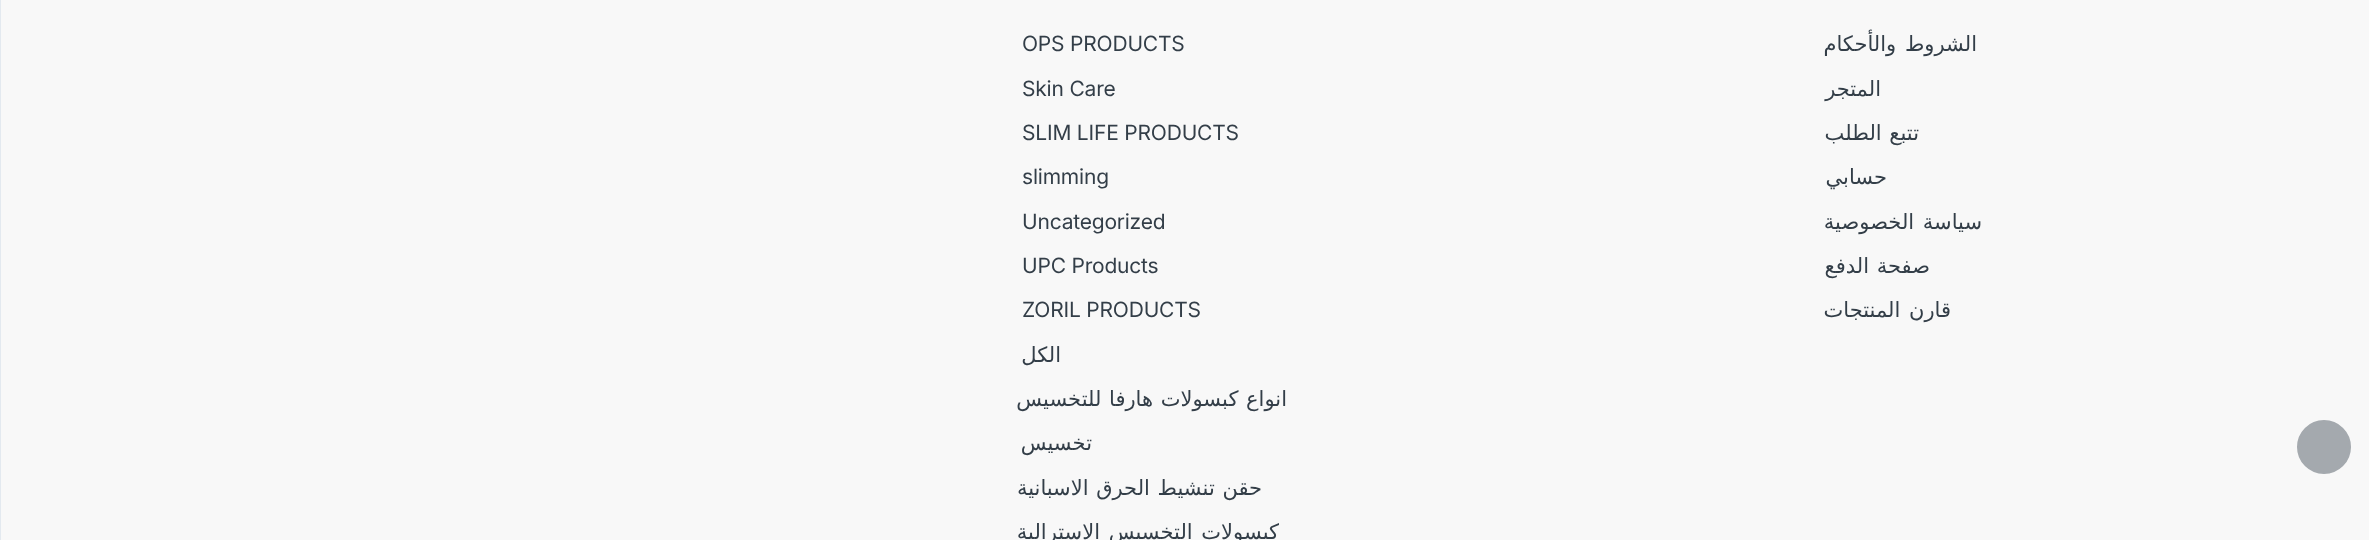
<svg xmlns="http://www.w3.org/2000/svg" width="2380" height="540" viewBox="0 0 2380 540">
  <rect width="100%" height="100%" fill="rgb(255,255,255)"/>
  <rect x="1" y="0" width="2368" height="540" fill="rgb(248,248,248)"/>
  <circle cx="2324" cy="447" r="26" fill="rgb(164,169,174)" stroke="rgb(164,169,174)" stroke-width="2"/>
  <g font-family="DejaVu Sans" font-size="21" letter-spacing="-0.2" direction="rtl" fill="rgb(51,62,72)">
    <text x="1977" y="51" word-spacing="2">الشروط والأحكام</text>
    <text x="1881" y="96">المتجر</text>
    <text x="1919" y="140" word-spacing="1">تتبع الطلب</text>
    <text x="1887" y="184">حسابي</text>
    <text x="1982" y="229" word-spacing="2">سياسة الخصوصية</text>
    <text x="1930" y="273" word-spacing="1">صفحة الدفع</text>
    <text x="1951" y="317" word-spacing="2">قارن المنتجات</text>
  </g>
  <g font-family="Inter" font-size="21" letter-spacing="-0.2" fill="rgb(51,62,72)">
    <text x="1022" y="51">OPS PRODUCTS</text>
    <text x="1022" y="96">Skin Care</text>
    <text x="1022" y="140">SLIM LIFE PRODUCTS</text>
    <text x="1022" y="184">slimming</text>
    <text x="1022" y="229">Uncategorized</text>
    <text x="1022" y="273">UPC Products</text>
    <text x="1022" y="317">ZORIL PRODUCTS</text>
  </g>
  <g font-family="DejaVu Sans" font-size="21" letter-spacing="-0.2" direction="rtl" fill="rgb(51,62,72)">
    <text x="1061" y="362">الكل</text>
    <text x="1287" y="406" word-spacing="1">انواع كبسولات هارفا للتخسيس</text>
    <text x="1092" y="450">تخسيس</text>
    <text x="1262" y="495" word-spacing="1">حقن تنشيط الحرق الاسبانية</text>
    <text x="1279" y="539" word-spacing="2">كبسولات التخسيس الاسترالية</text>
  </g>
  <rect x="0" y="0" width="1" height="540" fill="rgb(227,233,239)"/>
</svg>
